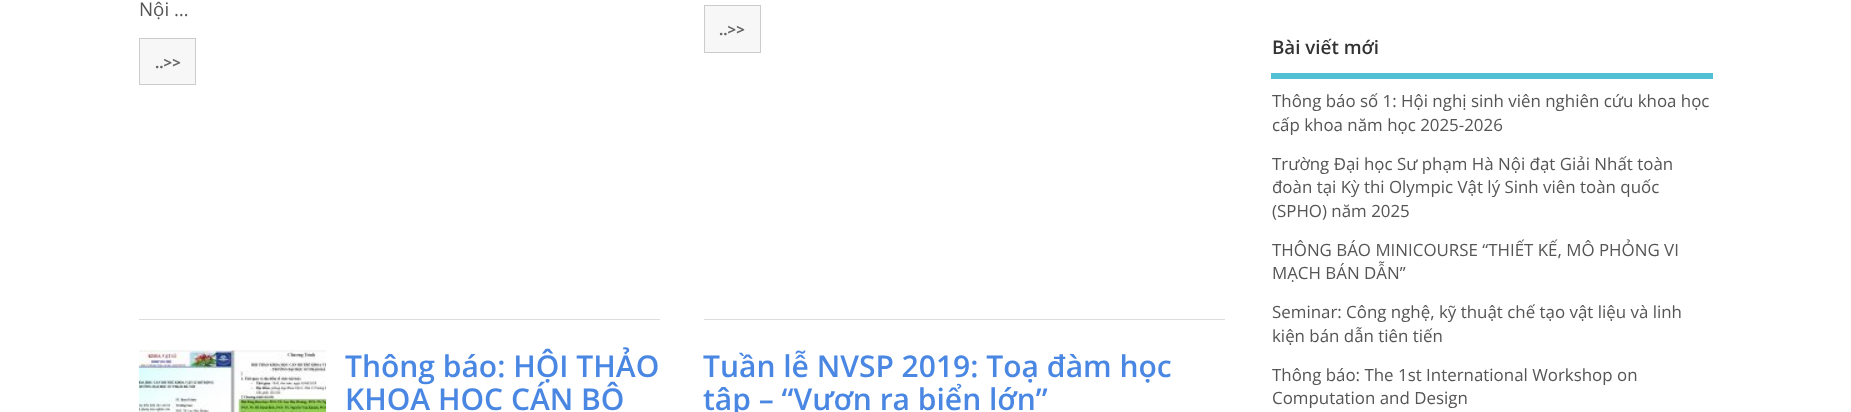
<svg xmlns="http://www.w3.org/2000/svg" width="1851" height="412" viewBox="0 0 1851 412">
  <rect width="100%" height="100%" fill="rgb(255,255,255)"/>
  <rect x="139" y="319" width="521" height="1" fill="rgb(221,221,221)"/>
  <text x="139" y="16" font-family="Open Sans" font-size="18.75" fill="rgb(85,85,85)">Nội …</text>
  <rect x="139.5" y="38.5" width="56" height="46" fill="rgb(247,247,247)" stroke="rgb(204,204,204)"/>
  <text x="155" y="68" font-family="Open Sans" font-size="15" font-weight="bold" fill="rgb(102,102,102)">..&gt;&gt;</text>
  <rect x="704" y="319" width="521" height="1" fill="rgb(221,221,221)"/>
  <rect x="704.5" y="5.5" width="56" height="47" fill="rgb(247,247,247)" stroke="rgb(204,204,204)"/>
  <text x="719" y="35" font-family="Open Sans" font-size="15" font-weight="bold" fill="rgb(102,102,102)">..&gt;&gt;</text>
  <image x="138" y="350" width="189" height="62" href="pic1.png"/>
  <g font-family="Open Sans" font-size="30" font-weight="600" fill="rgb(73,135,227)">
    <text>
      <tspan x="345" y="377">Thông báo: HỘI THẢO</tspan>
      <tspan x="345" y="410">KHOA HỌC CÁN BỘ</tspan>
    </text>
    <text>
      <tspan x="703" y="377">Tuần lễ NVSP 2019: Toạ đàm học</tspan>
      <tspan x="703" y="410">tập – “Vươn ra biển lớn”</tspan>
    </text>
  </g>
  <rect x="1271" y="73" width="442" height="6" fill="rgb(82,192,212)"/>
  <text x="1272" y="54" font-family="Open Sans" font-size="18.75" font-weight="600" fill="rgb(51,51,51)">Bài viết mới</text>
  <g font-family="Open Sans" font-size="16.9" fill="rgb(85,85,85)">
    <text>
      <tspan x="1272" y="107">Thông báo số 1: Hội nghị sinh viên nghiên cứu khoa học</tspan>
      <tspan x="1272" y="131">cấp khoa năm học 2025-2026</tspan>
    </text>
    <text>
      <tspan x="1272" y="170">Trường Đại học Sư phạm Hà Nội đạt Giải Nhất toàn</tspan>
      <tspan x="1272" y="193">đoàn tại Kỳ thi Olympic Vật lý Sinh viên toàn quốc</tspan>
      <tspan x="1272" y="217">(SPHO) năm 2025</tspan>
    </text>
    <text>
      <tspan x="1272" y="256">THÔNG BÁO MINICOURSE “THIẾT KẾ, MÔ PHỎNG VI</tspan>
      <tspan x="1272" y="279">MẠCH BÁN DẪN”</tspan>
    </text>
    <text>
      <tspan x="1272" y="318">Seminar: Công nghệ, kỹ thuật chế tạo vật liệu và linh</tspan>
      <tspan x="1272" y="342">kiện bán dẫn tiên tiến</tspan>
    </text>
    <text>
      <tspan x="1272" y="381">Thông báo: The 1st International Workshop on</tspan>
      <tspan x="1272" y="404">Computation and Design</tspan>
    </text>
  </g>
</svg>
